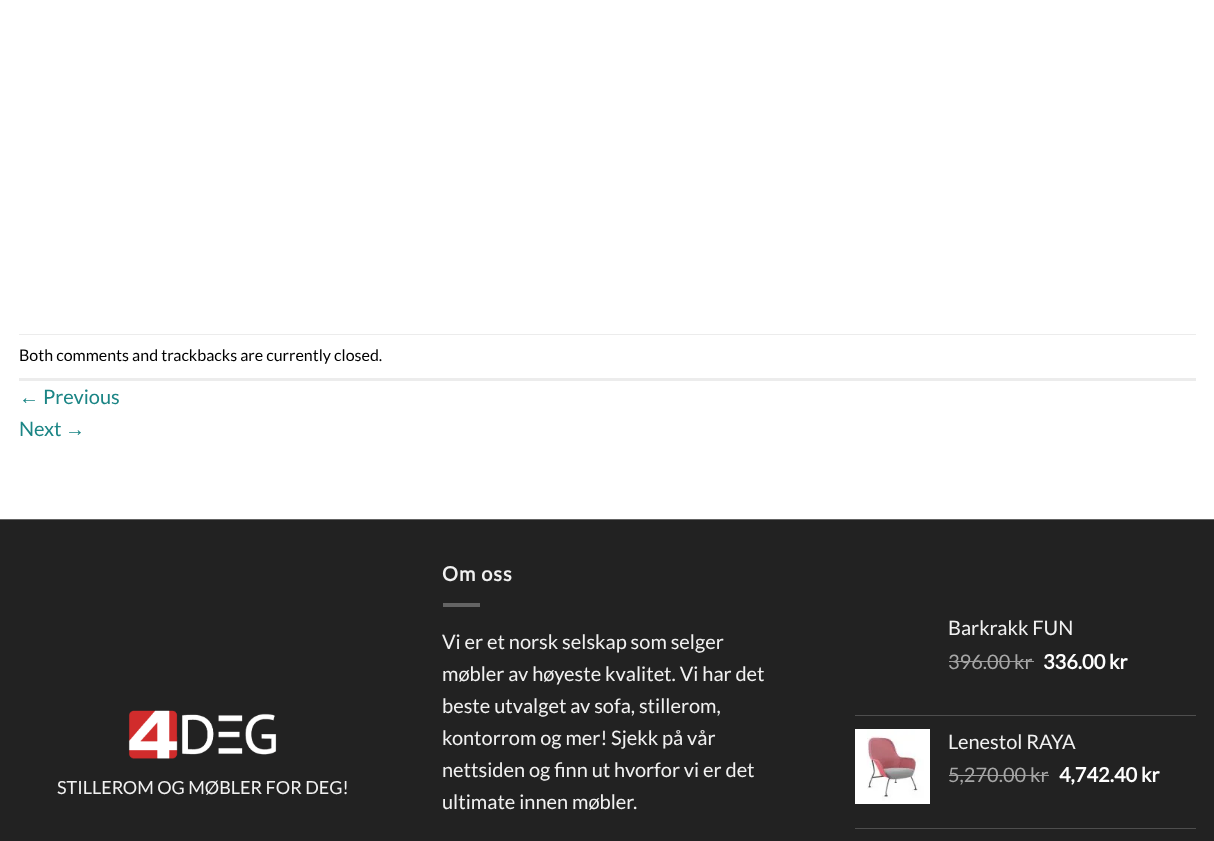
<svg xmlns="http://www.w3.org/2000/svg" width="1214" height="841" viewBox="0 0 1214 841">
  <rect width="100%" height="100%" fill="rgb(255,255,255)"/>
  <rect x="19" y="334" width="1177" height="1" fill="rgb(236,236,236)"/>
  <rect x="19" y="378" width="1177" height="3" fill="rgb(236,236,236)"/>
  <text x="19" y="361" font-family="Lato" font-size="16" fill="rgb(0,0,0)">Both comments and trackbacks are currently closed.</text>
  <text x="19" y="404" font-family="Liberation Sans" font-size="20" fill="rgb(27,133,133)">←</text>
  <g font-family="Lato" font-size="20" fill="rgb(27,133,133)">
    <text x="43" y="404">Previous</text>
    <text x="19" y="436">Next</text>
  </g>
  <text x="65" y="436" font-family="Liberation Sans" font-size="20" fill="rgb(27,133,133)">→</text>
  <rect x="0" y="520" width="1214" height="321" fill="rgb(34,34,34)"/>
  <rect x="0" y="519" width="1214" height="1" fill="rgb(100,100,100)"/>
  <text x="442" y="581" font-family="Lato" font-size="20" font-weight="bold" letter-spacing="1" fill="rgb(241,241,241)">Om oss</text>
  <rect x="443" y="603" width="37" height="4" fill="rgb(100,100,100)"/>
  <g font-family="Lato" font-size="20" fill="rgb(241,241,241)">
    <text>
      <tspan x="442" y="649">Vi er et norsk selskap som selger</tspan>
      <tspan x="442" y="681">møbler av høyeste kvalitet. Vi har det</tspan>
      <tspan x="442" y="713">beste utvalget av sofa, stillerom,</tspan>
      <tspan x="442" y="745">kontorrom og mer! Sjekk på vår</tspan>
      <tspan x="442" y="777">nettsiden og finn ut hvorfor vi er det</tspan>
      <tspan x="442" y="809">ultimate innen møbler.</tspan>
    </text>
    <text x="948" y="635">Barkrakk FUN</text>
  </g>
  <text x="948" y="669" font-family="Lato" font-size="20" fill="rgb(167,167,167)">396.00 kr</text>
  <rect x="949" y="661" width="85" height="1" fill="rgb(158,158,158)"/>
  <text x="1043" y="669" font-family="Lato" font-size="20" font-weight="bold" fill="rgb(255,255,255)">336.00 kr</text>
  <rect x="855" y="715" width="341" height="1" fill="rgb(78,78,78)"/>
  <image x="855" y="729" width="75" height="75" href="pic1.png"/>
  <text x="948" y="749" font-family="Lato" font-size="20" fill="rgb(241,241,241)">Lenestol RAYA</text>
  <text x="948" y="782" font-family="Lato" font-size="20" fill="rgb(167,167,167)">5,270.00 kr</text>
  <rect x="949" y="775" width="100" height="1" fill="rgb(158,158,158)"/>
  <text x="1059" y="782" font-family="Lato" font-size="20" font-weight="bold" fill="rgb(255,255,255)">4,742.40 kr</text>
  <rect x="855" y="828" width="341" height="1" fill="rgb(78,78,78)"/>
  <image x="128" y="710" width="149" height="49" href="pic2.png"/>
  <text x="57" y="794" font-family="Lato" font-size="18" fill="rgb(241,241,241)">STILLEROM OG MØBLER FOR DEG!</text>
</svg>
